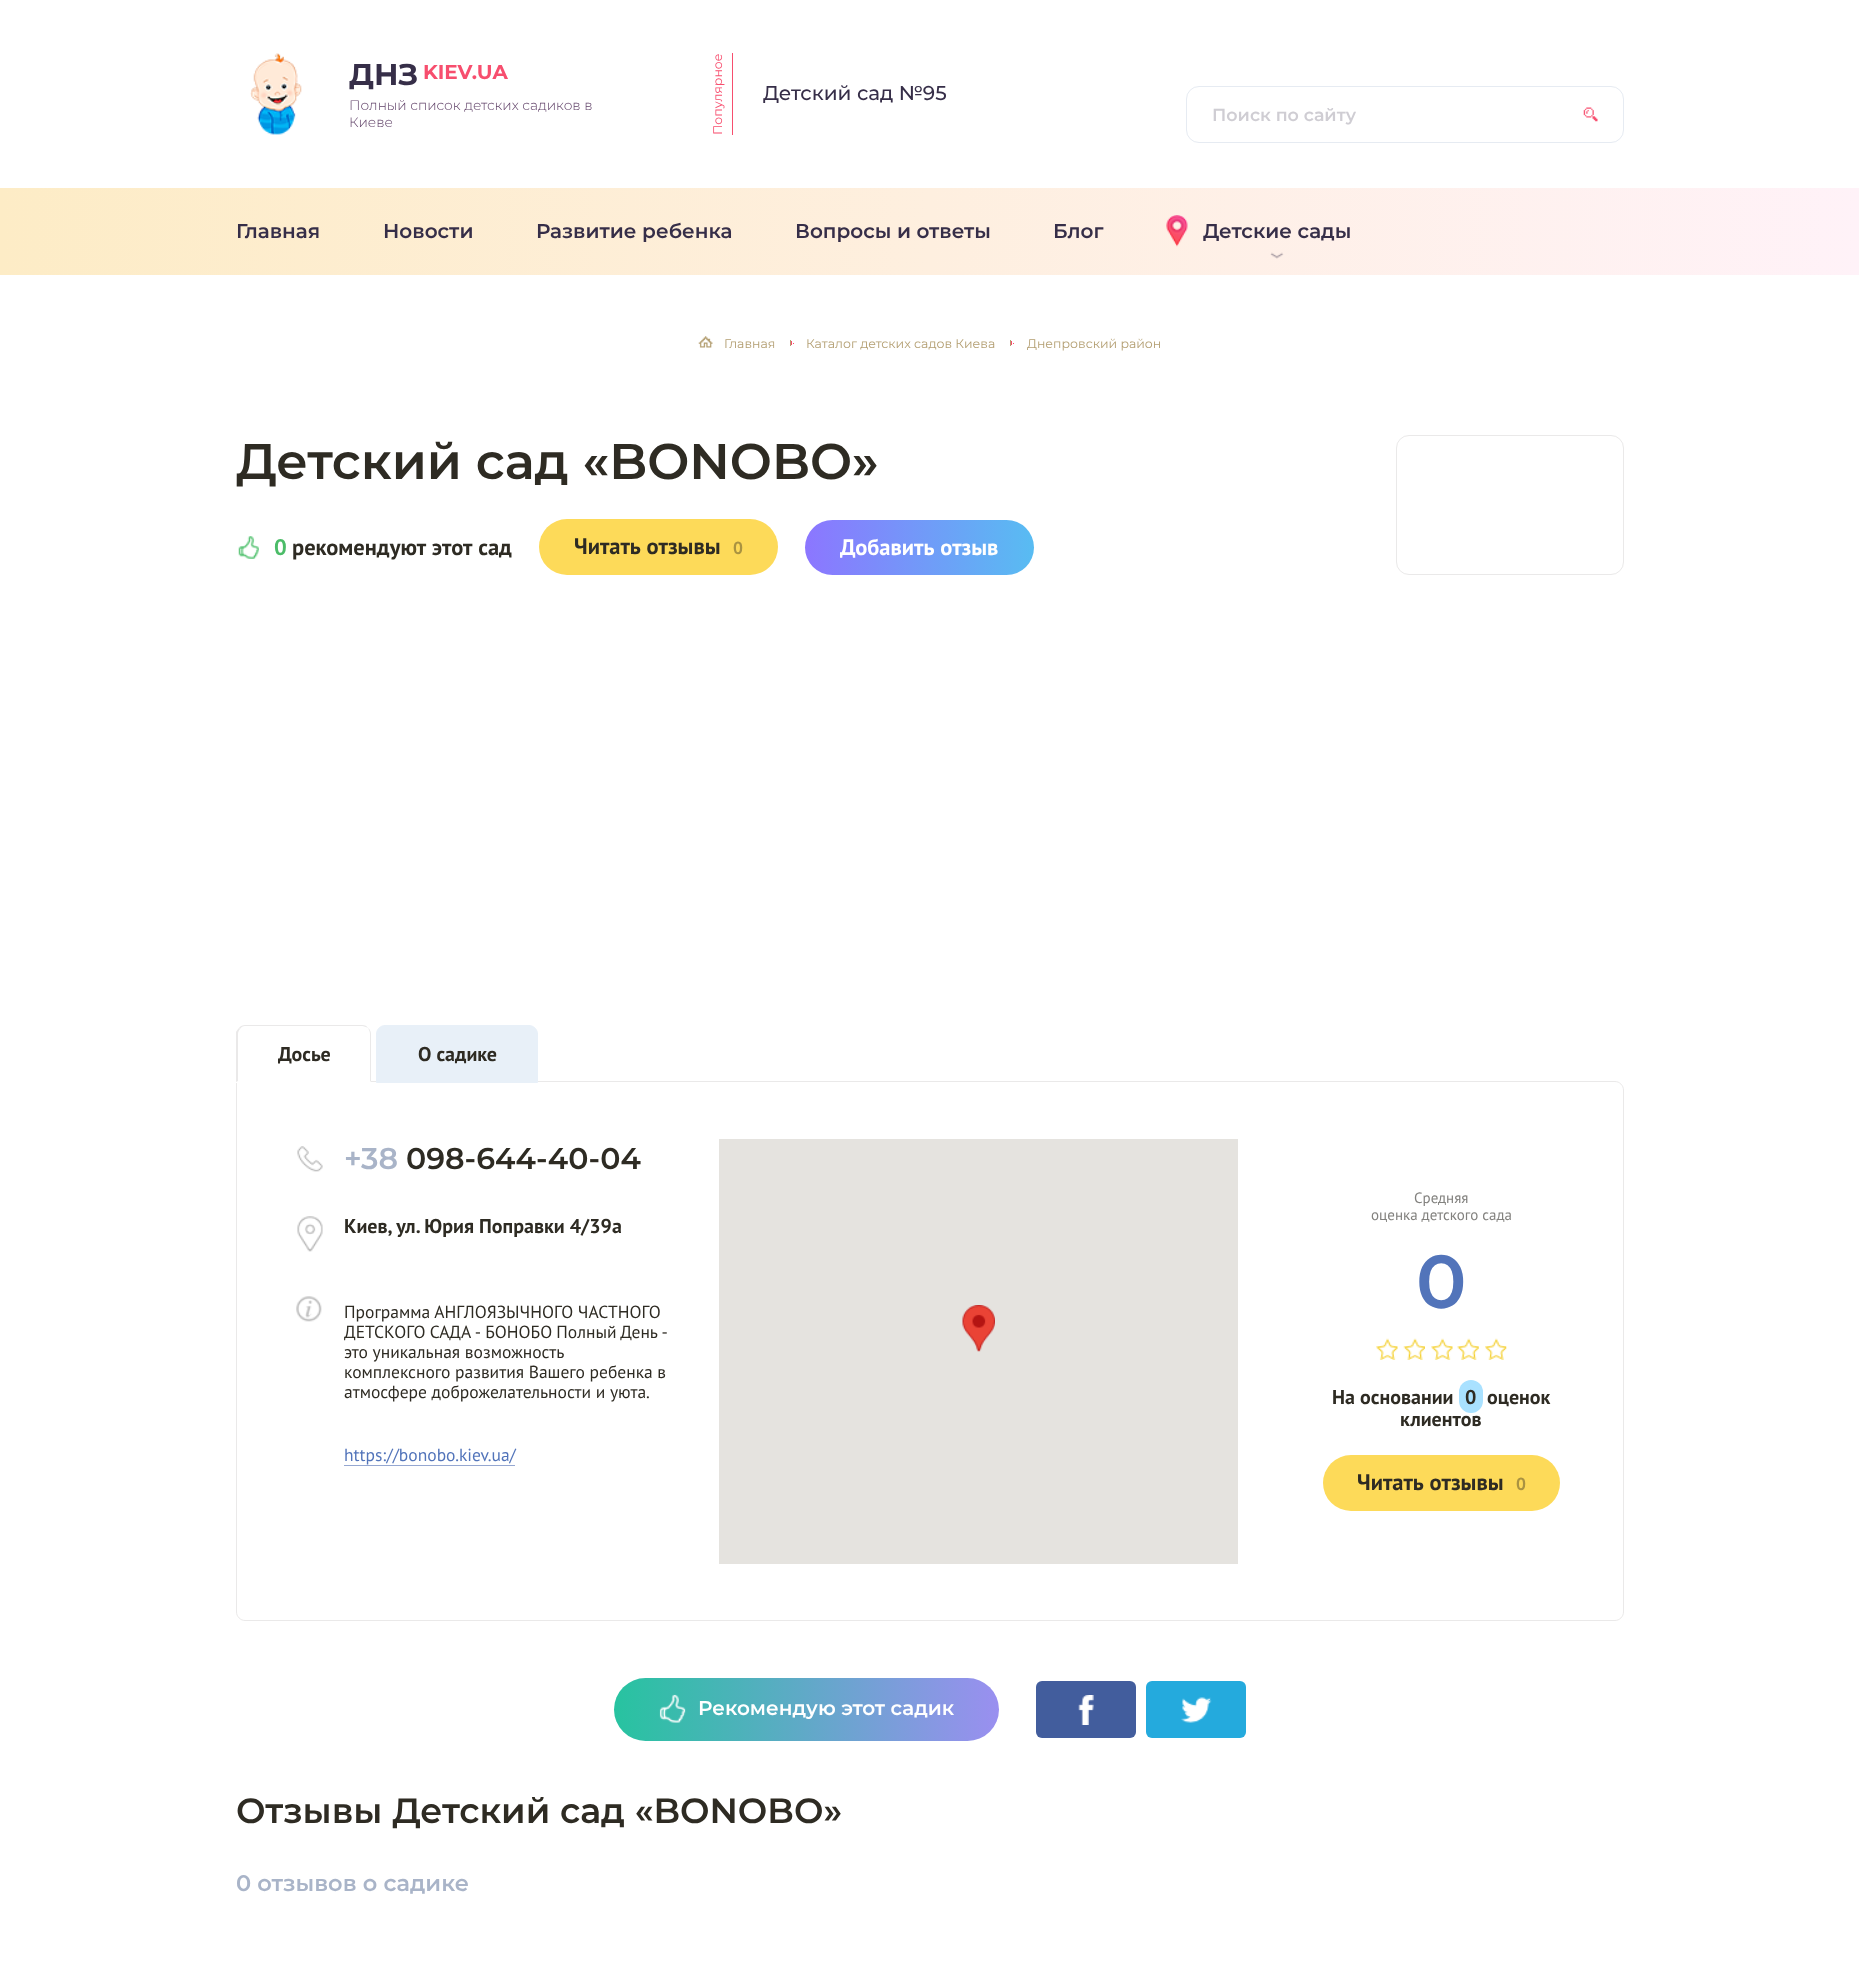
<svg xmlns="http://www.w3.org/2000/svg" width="1859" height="1972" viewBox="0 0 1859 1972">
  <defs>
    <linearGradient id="g1" gradientUnits="userSpaceOnUse" x1="0" y1="231" x2="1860" y2="231"><stop offset="0" stop-color="rgb(253,236,198)"/><stop offset="1" stop-color="rgb(255,242,248)"/></linearGradient>
    <linearGradient id="g2" gradientUnits="userSpaceOnUse" x1="805" y1="548" x2="1034" y2="548"><stop offset="0" stop-color="rgb(140,118,255)"/><stop offset="1" stop-color="rgb(88,188,242)"/></linearGradient>
    <linearGradient id="g3" gradientUnits="userSpaceOnUse" x1="614" y1="1709" x2="999" y2="1709"><stop offset="0" stop-color="rgb(39,195,160)"/><stop offset="1" stop-color="rgb(154,143,240)"/></linearGradient>
  </defs>
  <rect width="100%" height="100%" fill="rgb(255,255,255)"/>
  <image x="250" y="53" width="52" height="82" href="pic1.png"/>
  <text x="349" y="85" font-family="Montserrat" font-size="30" font-weight="bold" fill="rgb(54,46,72)">ДНЗ</text>
  <text x="423" y="79" font-family="Montserrat" font-size="20" font-weight="bold" fill="rgb(247,78,110)">KIEV.UA</text>
  <g font-family="Montserrat" font-size="13.75" font-weight="300" fill="rgb(94,63,102)">
    <text>
      <tspan x="349" y="110">Полный список детских садиков в</tspan>
      <tspan x="349" y="127">Киеве</tspan>
    </text>
  </g>
  <rect x="732" y="53" width="1" height="82" fill="rgb(247,78,110)"/>
  <text x="722" y="135" transform="rotate(-90 722 135)" font-family="Montserrat" font-size="12.5" fill="rgb(247,78,110)">Популярное</text>
  <text x="763" y="100" font-family="Montserrat" font-size="20" font-weight="500" fill="rgb(54,46,72)">Детский сад №95</text>
  <rect x="1186.5" y="86.5" width="437" height="56" rx="12.5" fill="none" stroke="rgb(230,235,242)"/>
  <text x="1212" y="121" font-family="Montserrat" font-size="17.5" font-weight="600" fill="rgb(207,205,211)">Поиск по сайту</text>
  <image x="1583" y="107" width="15" height="15" href="pic2.png"/>
  <rect x="0" y="188" width="1859" height="87" fill="url(#g1)"/>
  <g font-family="Montserrat" font-size="20" font-weight="600" fill="rgb(54,46,72)">
    <text x="236" y="238">Главная</text>
    <text x="383" y="238">Новости</text>
    <text x="536" y="238">Развитие ребенка</text>
    <text x="795" y="238">Вопросы и ответы</text>
    <text x="1053" y="238">Блог</text>
  </g>
  <image x="1166" y="215" width="22" height="32" href="pic3.png"/>
  <text x="1203" y="238" font-family="Montserrat" font-size="20" font-weight="600" fill="rgb(54,46,72)">Детские сады</text>
  <image x="1270" y="252" width="14" height="7" href="pic4.png"/>
  <image x="698" y="336" width="15" height="12" href="pic5.png"/>
  <text x="724" y="348" font-family="Montserrat" font-size="12.5" fill="rgb(179,158,113)">Главная</text>
  <rect x="790" y="340" width="1" height="6" fill="rgb(179,158,113)"/>
  <rect x="791" y="341" width="1" height="4" fill="rgb(247,78,110)"/>
  <rect x="793" y="343" width="1" height="1" fill="rgb(247,78,110)"/>
  <text x="806" y="348" font-family="Montserrat" font-size="12.5" fill="rgb(179,158,113)">Каталог детских садов Киева</text>
  <rect x="1010" y="340" width="1" height="6" fill="rgb(179,158,113)"/>
  <rect x="1011" y="341" width="1" height="4" fill="rgb(247,78,110)"/>
  <rect x="1013" y="343" width="1" height="1" fill="rgb(247,78,110)"/>
  <text x="1027" y="348" font-family="Montserrat" font-size="12.5" fill="rgb(179,158,113)">Днепровский район</text>
  <text x="236" y="479" font-family="Montserrat" font-size="50" font-weight="600" fill="rgb(46,43,35)">Детский сад «BONOBO»</text>
  <image x="238" y="536" width="21" height="23" href="pic6.png"/>
  <text x="274" y="555" font-family="PT Sans" font-size="22.5" font-weight="bold" fill="rgb(75,188,104)">0</text>
  <text x="292" y="555" font-family="PT Sans" font-size="22.5" font-weight="bold" fill="rgb(46,43,35)">рекомендуют этот сад</text>
  <rect x="539" y="519" width="239" height="56" rx="28" fill="rgb(253,218,89)"/>
  <text x="574" y="554" font-family="PT Sans" font-size="22.5" font-weight="bold" fill="rgb(46,43,35)">Читать отзывы</text>
  <text x="733" y="554" font-family="PT Sans" font-size="17.5" font-weight="bold" fill="rgb(170,147,65)">0</text>
  <rect x="805" y="520" width="229" height="55" rx="27.5" fill="url(#g2)"/>
  <text x="840" y="555" font-family="PT Sans" font-size="22.5" font-weight="bold" fill="rgb(255,255,255)">Добавить отзыв</text>
  <rect x="1396.5" y="435.5" width="227" height="139" rx="12.5" fill="none" stroke="rgb(234,233,233)"/>
  <path d="M236.5 1081.5H1615C1619.5 1081.5 1623.5 1085.5 1623.5 1090V1612C1623.5 1616.5 1619.5 1620.5 1615 1620.5H245C240.5 1620.5 236.5 1616.5 236.5 1612Z" fill="none" stroke="rgb(234,233,233)"/>
  <path d="M245 1025H362C367 1025 371 1029 371 1034V1083H236V1034C236 1029 240 1025 245 1025Z" fill="rgb(255,255,255)"/>
  <path d="M245 1025C243 1025 240 1026 239 1028L240 1029C241 1027 243 1026 245 1026H362C364 1026 366 1027 368 1028C367 1026 365 1025 362 1025Z" fill="rgb(234,233,233)"/>
  <path d="M368 1028C370 1029 371 1032 371 1034V1082L370 1081V1034C370 1032 369 1030 368 1028Z" fill="rgb(234,233,233)"/>
  <path d="M236 1032C237 1030 238 1029 239 1028L240 1029C239 1030 238 1032 238 1034V1081L236 1082Z" fill="rgb(234,233,233)"/>
  <text x="278" y="1061" font-family="PT Sans" font-size="20" font-weight="bold" fill="rgb(46,43,35)">Досье</text>
  <path d="M385 1025.5H529C533.5 1025.5 537.5 1029.5 537.5 1034V1082.5H376.5V1034C376.5 1029.5 380.5 1025.5 385 1025.5Z" fill="rgb(232,240,248)" stroke="rgb(232,240,248)"/>
  <text x="418" y="1061" font-family="PT Sans" font-size="20" font-weight="bold" fill="rgb(46,43,35)">О садике</text>
  <image x="297" y="1146" width="26" height="26" href="pic7.png"/>
  <text x="344" y="1169" font-family="Montserrat" font-size="30" font-weight="600" fill="rgb(169,180,200)">+38</text>
  <text x="406" y="1169" font-family="Montserrat" font-size="30" font-weight="600" fill="rgb(46,43,35)">098-644-40-04</text>
  <image x="297" y="1216" width="26" height="36" href="pic8.png"/>
  <text x="344" y="1233" font-family="PT Sans" font-size="20" font-weight="bold" fill="rgb(46,43,35)">Киев, ул. Юрия Поправки 4/39а</text>
  <image x="296" y="1296" width="26" height="26" href="pic9.png"/>
  <g font-family="PT Sans" font-size="17.5" fill="rgb(46,43,35)">
    <text>
      <tspan x="344" y="1318">Программа АНГЛОЯЗЫЧНОГО ЧАСТНОГО</tspan>
      <tspan x="344" y="1338" word-spacing="-0.5">ДЕТСКОГО САДА - БОНОБО Полный День -</tspan>
      <tspan x="344" y="1358">это уникальная возможность</tspan>
      <tspan x="344" y="1378">комплексного развития Вашего ребенка в</tspan>
      <tspan x="344" y="1398">атмосфере доброжелательности и уюта.</tspan>
    </text>
  </g>
  <rect x="344" y="1465" width="171" height="1" fill="rgb(149,167,209)"/>
  <text x="344" y="1461" font-family="PT Sans" font-size="17.5" fill="rgb(82,116,186)">https://bonobo.kiev.ua/</text>
  <rect x="719" y="1139" width="519" height="425" fill="rgb(229,227,223)"/>
  <image x="962" y="1305" width="33" height="47" href="pic10.png"/>
  <g font-family="PT Sans" font-size="15" fill="rgb(130,129,126)">
    <text x="1414" y="1203">Средняя</text>
    <text x="1371" y="1220">оценка детского сада</text>
  </g>
  <text x="1416" y="1308" font-family="Montserrat" font-size="75" font-weight="600" fill="rgb(82,116,186)">0</text>
  <image x="1376" y="1338" width="22" height="22" href="pic11.png"/>
  <image x="1403" y="1338" width="22" height="22" href="pic12.png"/>
  <image x="1431" y="1338" width="22" height="22" href="pic11.png"/>
  <image x="1457" y="1338" width="22" height="22" href="pic13.png"/>
  <image x="1485" y="1338" width="22" height="22" href="pic14.png"/>
  <text x="1332" y="1404" font-family="PT Sans" font-size="20" font-weight="bold" fill="rgb(46,43,35)">На основании</text>
  <rect x="1459" y="1380" width="24" height="33" rx="12" fill="rgb(169,225,255)"/>
  <g font-family="PT Sans" font-size="20" font-weight="bold" fill="rgb(46,43,35)">
    <text x="1465" y="1404">0</text>
    <text x="1487" y="1404">оценок</text>
    <text x="1400" y="1426">клиентов</text>
  </g>
  <rect x="1323" y="1455" width="237" height="56" rx="28" fill="rgb(253,218,89)"/>
  <text x="1357" y="1490" font-family="PT Sans" font-size="22.5" font-weight="bold" fill="rgb(46,43,35)">Читать отзывы</text>
  <text x="1516" y="1490" font-family="PT Sans" font-size="17.5" font-weight="bold" fill="rgb(170,147,65)">0</text>
  <rect x="614" y="1678" width="385" height="63" rx="31.5" fill="url(#g3)"/>
  <image x="659" y="1694" width="27" height="29" href="pic15.png"/>
  <text x="698" y="1715" font-family="Montserrat" font-size="20" font-weight="600" fill="rgb(255,255,255)">Рекомендую этот садик</text>
  <rect x="1036" y="1681" width="100" height="57" rx="6" fill="rgb(66,93,157)"/>
  <image x="1078" y="1695" width="16" height="30" href="pic16.png"/>
  <rect x="1146" y="1681" width="100" height="57" rx="6" fill="rgb(36,170,221)"/>
  <image x="1181" y="1697" width="31" height="26" href="pic17.png"/>
  <text x="236" y="1823" font-family="Montserrat" font-size="35" font-weight="600" fill="rgb(46,43,35)">Отзывы Детский сад «BONOBO»</text>
  <text x="236" y="1891" font-family="Montserrat" font-size="22.5" font-weight="600" fill="rgb(169,180,200)">0 отзывов о садике</text>
</svg>
